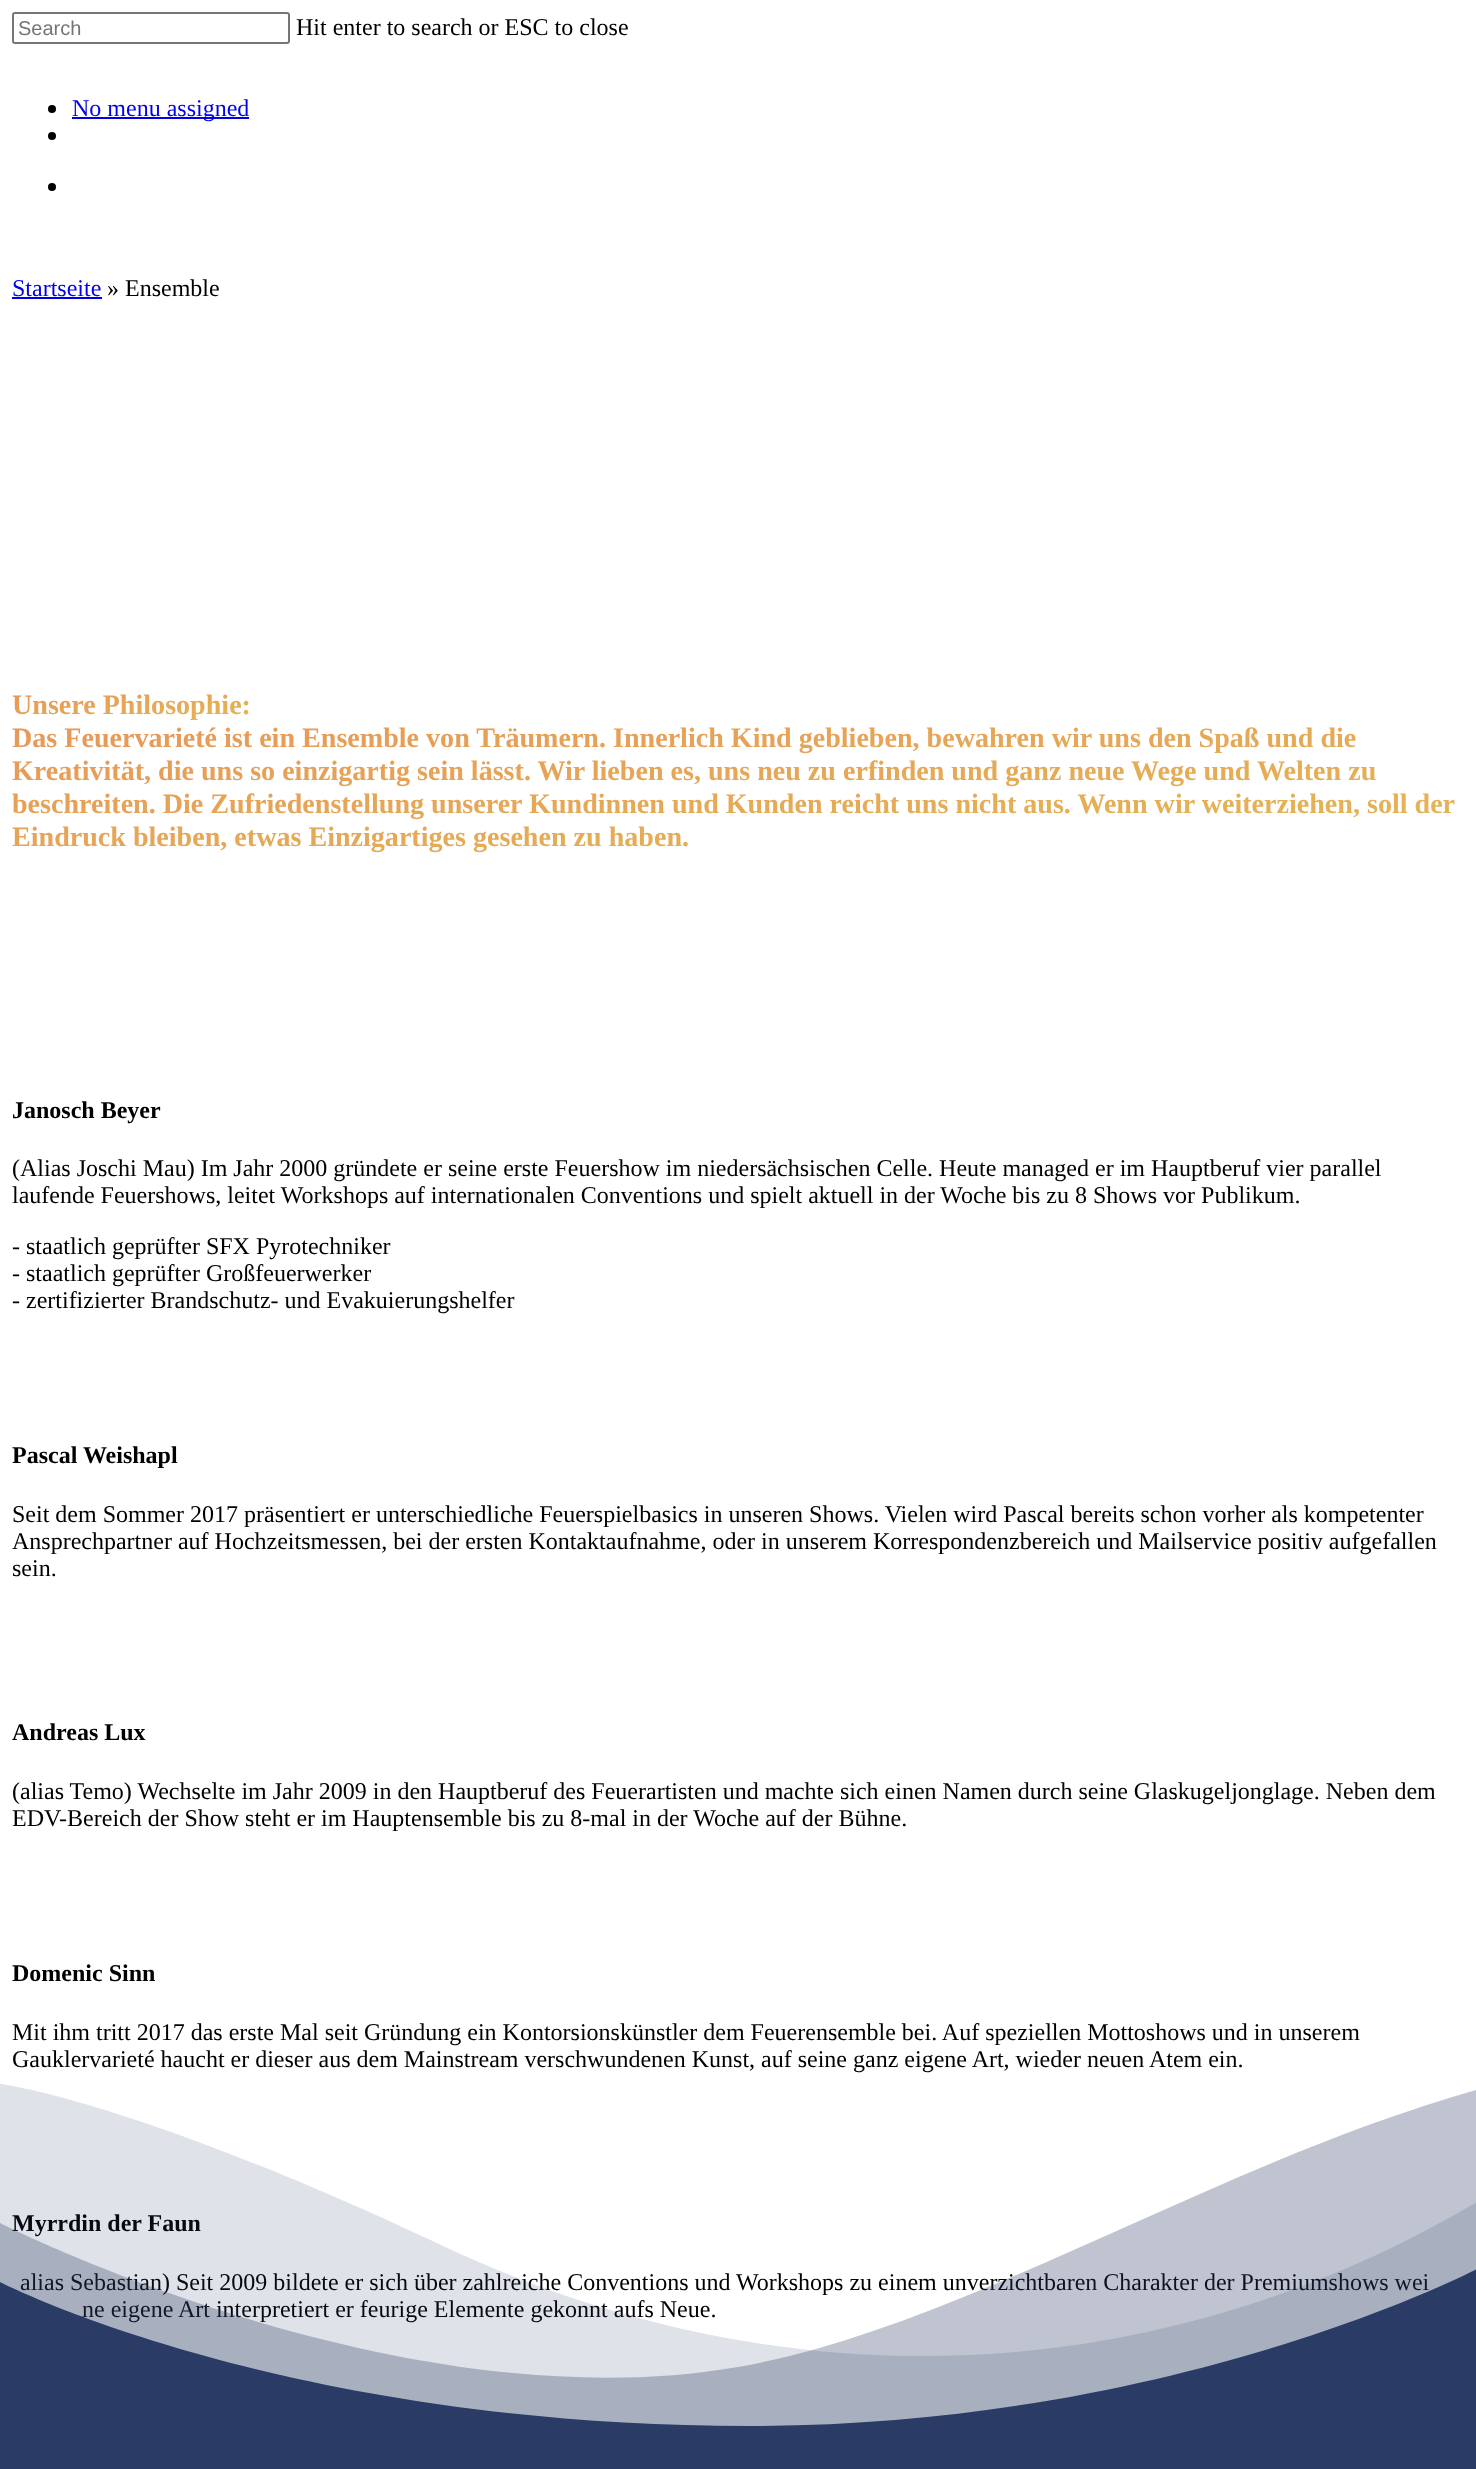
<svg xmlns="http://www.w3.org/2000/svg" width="1476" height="2469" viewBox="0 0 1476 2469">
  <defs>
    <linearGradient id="g1" gradientUnits="userSpaceOnUse" x1="127" y1="673" x2="136" y2="738"><stop offset="0" stop-color="rgb(232,148,88)"/><stop offset="1" stop-color="rgb(228,184,86)"/></linearGradient>
    <linearGradient id="g2" gradientUnits="userSpaceOnUse" x1="719" y1="609" x2="757" y2="934"><stop offset="0" stop-color="rgb(232,148,88)"/><stop offset="1" stop-color="rgb(228,184,86)"/></linearGradient>
  </defs>
  <rect width="100%" height="100%" fill="rgb(255,255,255)"/>
  <rect x="13" y="13" width="276" height="30" rx="2" fill="none" stroke="rgb(118,118,118)" stroke-width="2"/>
  <text x="18" y="35" font-family="Liberation Sans" font-size="20" fill="rgb(117,117,117)">Search</text>
  <text x="296" y="35" font-family="Liberation Serif" font-size="24" fill="rgb(0,0,0)">Hit enter to search or ESC to close</text>
  <circle cx="52" cy="109" r="4" fill="rgb(0,0,0)"/>
  <rect x="72" y="117" width="177" height="2" fill="rgb(0,0,238)"/>
  <text x="72" y="116" font-family="Liberation Serif" font-size="24" fill="rgb(0,0,238)">No menu assigned</text>
  <circle cx="52" cy="136" r="4" fill="rgb(0,0,0)"/>
  <circle cx="52" cy="187" r="4" fill="rgb(0,0,0)"/>
  <text x="12" y="296" font-family="Liberation Serif" font-size="24" fill="rgb(0,0,238)">Startseite</text>
  <rect x="12" y="297" width="90" height="2" fill="rgb(0,0,238)"/>
  <text x="107" y="296" font-family="Liberation Serif" font-size="24" fill="rgb(0,0,0)">» Ensemble</text>
  <text x="12" y="714" font-family="Liberation Serif" font-size="28.08" font-weight="bold" fill="url(#g1)">Unsere Philosophie:</text>
  <g font-family="Liberation Serif" font-size="28.08" font-weight="bold" fill="url(#g2)">
    <text>
      <tspan x="12" y="747">Das Feuervarieté ist ein Ensemble von Träumern. Innerlich Kind geblieben, bewahren wir uns den Spaß und die</tspan>
      <tspan x="12" y="780">Kreativität, die uns so einzigartig sein lässt. Wir lieben es, uns neu zu erfinden und ganz neue Wege und Welten zu</tspan>
      <tspan x="12" y="813">beschreiten. Die Zufriedenstellung unserer Kundinnen und Kunden reicht uns nicht aus. Wenn wir weiterziehen, soll der</tspan>
      <tspan x="12" y="846">Eindruck bleiben, etwas Einzigartiges gesehen zu haben.</tspan>
    </text>
  </g>
  <text x="12" y="1118" font-family="Liberation Serif" font-size="24" font-weight="bold" fill="rgb(0,0,0)">Janosch Beyer</text>
  <g font-family="Liberation Serif" font-size="24" fill="rgb(0,0,0)">
    <text>
      <tspan x="12" y="1176">(Alias Joschi Mau) Im Jahr 2000 gründete er seine erste Feuershow im niedersächsischen Celle. Heute managed er im Hauptberuf vier parallel</tspan>
      <tspan x="12" y="1203">laufende Feuershows, leitet Workshops auf internationalen Conventions und spielt aktuell in der Woche bis zu 8 Shows vor Publikum.</tspan>
    </text>
    <text>
      <tspan x="12" y="1254">- staatlich geprüfter SFX Pyrotechniker</tspan>
      <tspan x="12" y="1281">- staatlich geprüfter Großfeuerwerker</tspan>
      <tspan x="12" y="1308">- zertifizierter Brandschutz- und Evakuierungshelfer</tspan>
    </text>
  </g>
  <text x="12" y="1463" font-family="Liberation Serif" font-size="24" font-weight="bold" fill="rgb(0,0,0)">Pascal Weishapl</text>
  <g font-family="Liberation Serif" font-size="24" fill="rgb(0,0,0)">
    <text>
      <tspan x="12" y="1522">Seit dem Sommer 2017 präsentiert er unterschiedliche Feuerspielbasics in unseren Shows. Vielen wird Pascal bereits schon vorher als kompetenter</tspan>
      <tspan x="12" y="1549">Ansprechpartner auf Hochzeitsmessen, bei der ersten Kontaktaufnahme, oder in unserem Korrespondenzbereich und Mailservice positiv aufgefallen</tspan>
      <tspan x="12" y="1576">sein.</tspan>
    </text>
  </g>
  <text x="12" y="1740" font-family="Liberation Serif" font-size="24" font-weight="bold" fill="rgb(0,0,0)">Andreas Lux</text>
  <g font-family="Liberation Serif" font-size="24" fill="rgb(0,0,0)">
    <text>
      <tspan x="12" y="1799">(alias Temo) Wechselte im Jahr 2009 in den Hauptberuf des Feuerartisten und machte sich einen Namen durch seine Glaskugeljonglage. Neben dem</tspan>
      <tspan x="12" y="1826">EDV-Bereich der Show steht er im Hauptensemble bis zu 8-mal in der Woche auf der Bühne.</tspan>
    </text>
  </g>
  <text x="12" y="1981" font-family="Liberation Serif" font-size="24" font-weight="bold" fill="rgb(0,0,0)">Domenic Sinn</text>
  <g font-family="Liberation Serif" font-size="24" fill="rgb(0,0,0)">
    <text>
      <tspan x="12" y="2040">Mit ihm tritt 2017 das erste Mal seit Gründung ein Kontorsionskünstler dem Feuerensemble bei. Auf speziellen Mottoshows und in unserem</tspan>
      <tspan x="12" y="2067">Gauklervarieté haucht er dieser aus dem Mainstream verschwundenen Kunst, auf seine ganz eigene Art, wieder neuen Atem ein.</tspan>
    </text>
  </g>
  <text x="12" y="2231" font-family="Liberation Serif" font-size="24" font-weight="bold" fill="rgb(0,0,0)">Myrrdin der Faun</text>
  <g font-family="Liberation Serif" font-size="24" fill="rgb(0,0,0)">
    <text x="20" y="2290">alias Sebastian) Seit 2009 bildete er sich über zahlreiche Conventions und Workshops zu einem unverzichtbaren Charakter der Premiumshows wei</text>
    <text x="82" y="2317">ne eigene Art interpretiert er feurige Elemente gekonnt aufs Neue.</text>
  </g>
  <path d="M0 2084C0 2084 131 2099 443 2246C827 2426 1201 2367 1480 2200L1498 2326L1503 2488H0Z" fill="rgba(42,60,101,0.15)"/>
  <path d="M0 2223C0 2223 400 2426 738 2367C970 2326 1225 2156 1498 2084V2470H0Z" fill="rgba(42,60,101,0.3)"/>
  <path d="M0 2282C0 2282 278 2426 750 2426C1178 2426 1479 2268 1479 2268V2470H0Z" fill="rgb(42,60,101)"/>
</svg>
